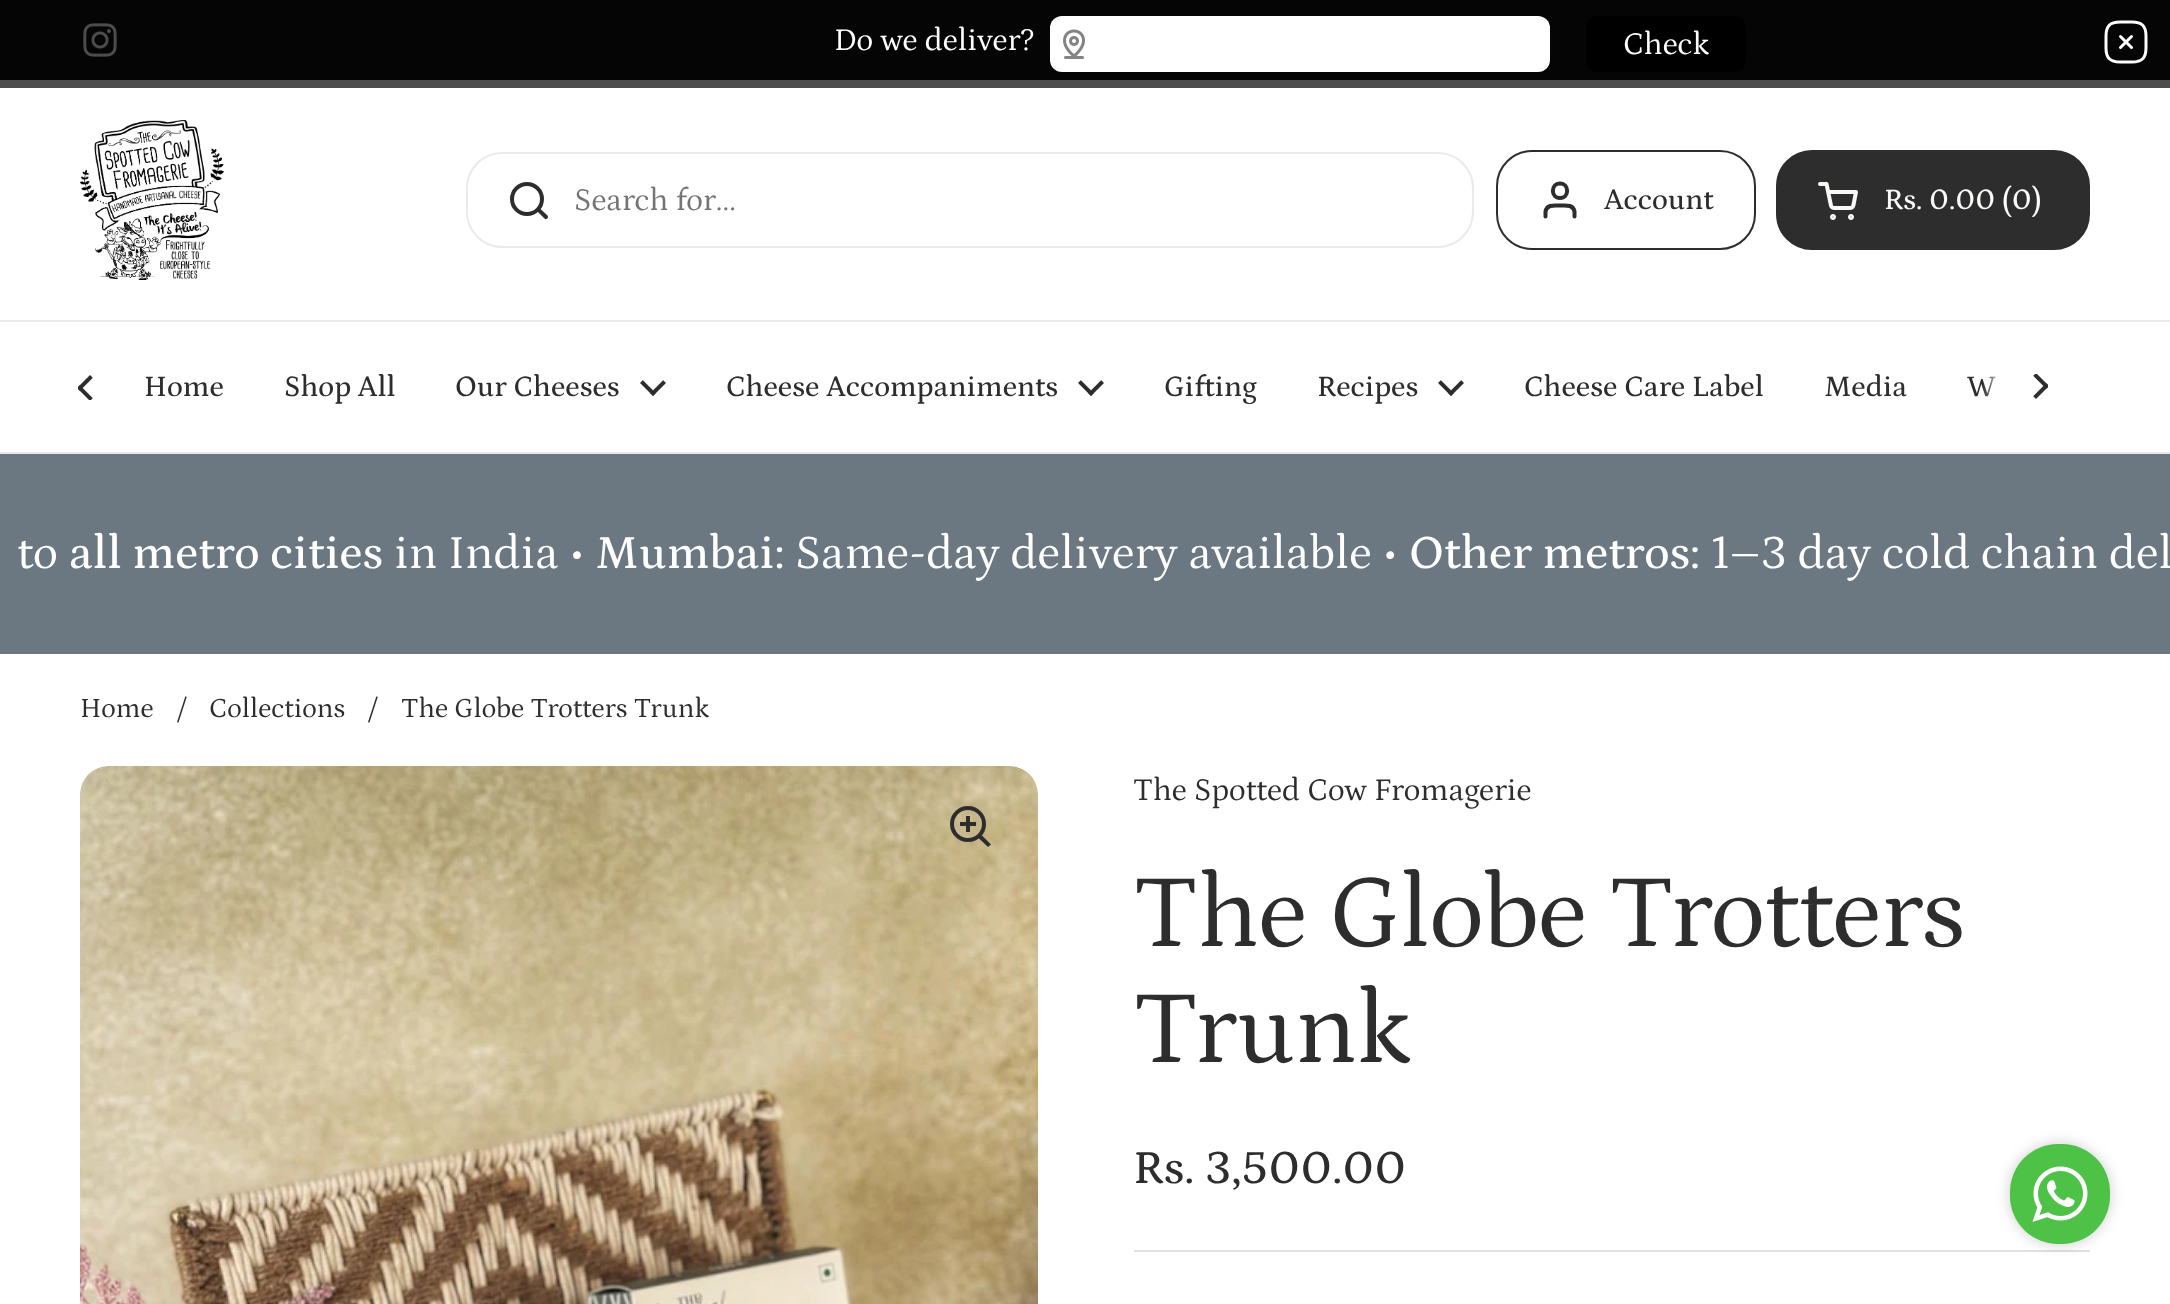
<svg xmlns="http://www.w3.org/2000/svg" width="2170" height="1304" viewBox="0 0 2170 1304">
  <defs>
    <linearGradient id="g1" gradientUnits="userSpaceOnUse" x1="2032" y1="387" x2="1982" y2="387"><stop offset="0.5" stop-color="rgb(255,255,255)"/><stop offset="1" stop-color="rgb(255,255,255)" stop-opacity="0"/></linearGradient>
  </defs>
  <rect width="100%" height="100%" fill="rgb(255,255,255)"/>
  <rect x="0" y="80" width="2170" height="8" fill="rgb(77,77,77)"/>
  <rect x="0" y="0" width="2170" height="80" fill="rgb(5,5,5)"/>
  <image x="83" y="23" width="34" height="34" href="pic1.png"/>
  <text x="834" y="50" font-family="Petrona" font-size="32" fill="rgb(255,255,255)">Do we deliver?</text>
  <rect x="1050" y="16" width="500" height="56" rx="12" fill="rgb(255,255,255)"/>
  <image x="1063" y="29" width="22" height="30" href="pic2.png"/>
  <rect x="1586" y="16" width="160" height="56" rx="12" fill="rgb(0,0,0)"/>
  <text x="1623" y="54" font-family="Petrona" font-size="32" fill="rgb(255,255,255)">Check</text>
  <path d="M2120.5 47.5L2131.5 36.5M2131.5 47.5L2120.5 36.5M2120 62H2132C2142 62 2146 58 2146 48V36C2146 26 2142 22 2132 22H2120C2110 22 2106 26 2106 36V48C2106 58 2110 62 2120 62Z" fill="none" stroke="rgb(255,255,255)" stroke-width="3" stroke-linecap="round" stroke-linejoin="round"/>
  <rect x="0" y="320" width="2170" height="2" fill="rgb(234,234,234)"/>
  <image x="80" y="120" width="144" height="160" href="pic3.png"/>
  <rect x="467" y="153" width="1006" height="94" rx="35" fill="none" stroke="rgb(234,234,234)" stroke-width="2"/>
  <circle cx="527" cy="199" r="15" fill="none" stroke="rgb(45,45,45)" stroke-width="4"/>
  <path d="M540 208.5L539 207L536 210L537.5 211.5ZM544.5 218.5C546.5 220.5 549 217.5 547.5 215.5ZM537.5 211.5L544.5 218.5L547.5 215.5L540 208.5Z" fill="rgb(45,45,45)"/>
  <text x="574" y="210" font-family="Petrona" font-size="32" fill="rgb(116,116,116)">Search for...</text>
  <rect x="1497" y="151" width="258" height="98" rx="35" fill="none" stroke="rgb(45,45,45)" stroke-width="2"/>
  <path d="M1574.5 216.5V211.5C1573 204 1565.5 205.5 1560 205.5C1554.5 205.5 1547 204 1545.5 211.5V216.5M1560 198C1569.5 198 1569.5 183.5 1560 183.5C1550.5 183.5 1550.5 198 1560 198Z" fill="none" stroke="rgb(45,45,45)" stroke-width="4" stroke-linecap="round" stroke-linejoin="round"/>
  <text x="1604" y="209" font-family="Petrona" font-size="30" font-weight="500" fill="rgb(45,45,45)">Account</text>
  <rect x="1777" y="151" width="312" height="98" rx="35" fill="rgb(45,45,45)" stroke="rgb(45,45,45)" stroke-width="2"/>
  <image x="1818" y="182" width="40" height="38" href="pic4.png"/>
  <text x="1884" y="209" font-family="Petrona" font-size="30" font-weight="500" fill="rgb(250,249,247)">Rs. 0.00 (0)</text>
  <rect x="0" y="452" width="2170" height="2" fill="rgb(234,234,234)"/>
  <image x="78" y="375" width="15" height="25" href="pic5.png"/>
  <g font-family="Petrona" font-size="30" font-weight="500" fill="rgb(45,45,45)">
    <text x="144" y="396">Home</text>
    <text x="284" y="396">Shop All</text>
    <text x="455" y="396">Our Cheeses</text>
  </g>
  <image x="640" y="380" width="26" height="16" href="pic6.png"/>
  <text x="726" y="396" font-family="Petrona" font-size="30" font-weight="500" fill="rgb(45,45,45)">Cheese Accompaniments</text>
  <image x="1078" y="380" width="26" height="16" href="pic6.png"/>
  <g font-family="Petrona" font-size="30" font-weight="500" fill="rgb(45,45,45)">
    <text x="1164" y="396">Gifting</text>
    <text x="1317" y="396">Recipes</text>
  </g>
  <image x="1438" y="380" width="26" height="16" href="pic6.png"/>
  <g font-family="Petrona" font-size="30" font-weight="500" fill="rgb(45,45,45)">
    <text x="1524" y="396">Cheese Care Label</text>
    <text x="1824" y="396">Media</text>
    <text x="1967" y="396">W</text>
  </g>
  <rect x="1983" y="376" width="13" height="21" fill="url(#g1)"/>
  <image x="2033" y="374" width="15" height="25" href="pic7.png"/>
  <rect x="0" y="454" width="2170" height="200" fill="rgb(107,119,129)"/>
  <text x="17" y="568" font-family="Petrona" font-size="48" fill="rgb(255,255,255)">to</text>
  <text x="69" y="568" font-family="Petrona" font-size="48" font-weight="500" fill="rgb(255,255,255)">all metro cities</text>
  <text x="394" y="568" font-family="Petrona" font-size="48" fill="rgb(255,255,255)">in India •</text>
  <text x="595" y="568" font-family="Petrona" font-size="48" font-weight="500" fill="rgb(255,255,255)">Mumbai:</text>
  <text x="795" y="568" font-family="Petrona" font-size="48" fill="rgb(255,255,255)">Same-day delivery available •</text>
  <text x="1409" y="568" font-family="Petrona" font-size="48" font-weight="500" fill="rgb(255,255,255)">Other metros:</text>
  <text x="1711" y="568" font-family="Petrona" font-size="48" fill="rgb(255,255,255)">1–3 day cold chain del</text>
  <g font-family="Petrona" font-size="28" fill="rgb(45,45,45)">
    <text x="80" y="717">Home</text>
    <text x="176" y="717">/</text>
    <text x="209" y="717">Collections</text>
    <text x="367" y="717">/</text>
    <text x="401" y="717">The Globe Trotters Trunk</text>
  </g>
  <image x="80" y="766" width="958" height="538" href="pic8.png"/>
  <circle cx="968" cy="824" r="16" fill="none" stroke="rgb(45,45,45)" stroke-width="4"/>
  <rect x="966" y="816" width="4" height="16" fill="rgb(45,45,45)"/>
  <rect x="960" y="822" width="16" height="4" fill="rgb(45,45,45)"/>
  <path d="M978.5 838L981.5 835L991 844.5L988 847Z" fill="rgb(45,45,45)"/>
  <text x="1133" y="800" font-family="Petrona" font-size="32" fill="rgb(45,45,45)">The Spotted Cow Fromagerie</text>
  <g font-family="Petrona" font-size="105" letter-spacing="-1" fill="rgb(45,45,45)">
    <text>
      <tspan x="1133" y="946">The Globe Trotters</tspan>
      <tspan x="1133" y="1062">Trunk</tspan>
    </text>
  </g>
  <text x="1133" y="1183" font-family="Petrona" font-size="48" font-weight="500" fill="rgb(45,45,45)">Rs. 3,500.00</text>
  <rect x="1134" y="1250" width="956" height="2" fill="rgb(224,224,224)"/>
  <rect x="2010" y="1144" width="100" height="100" rx="48" fill="rgba(0,0,0,0.2)" filter="blur(7px)"/>
  <rect x="2010" y="1144" width="100" height="100" rx="48" fill="rgb(77,194,71)"/>
  <image x="2032" y="1166" width="56" height="56" href="pic9.png"/>
</svg>
